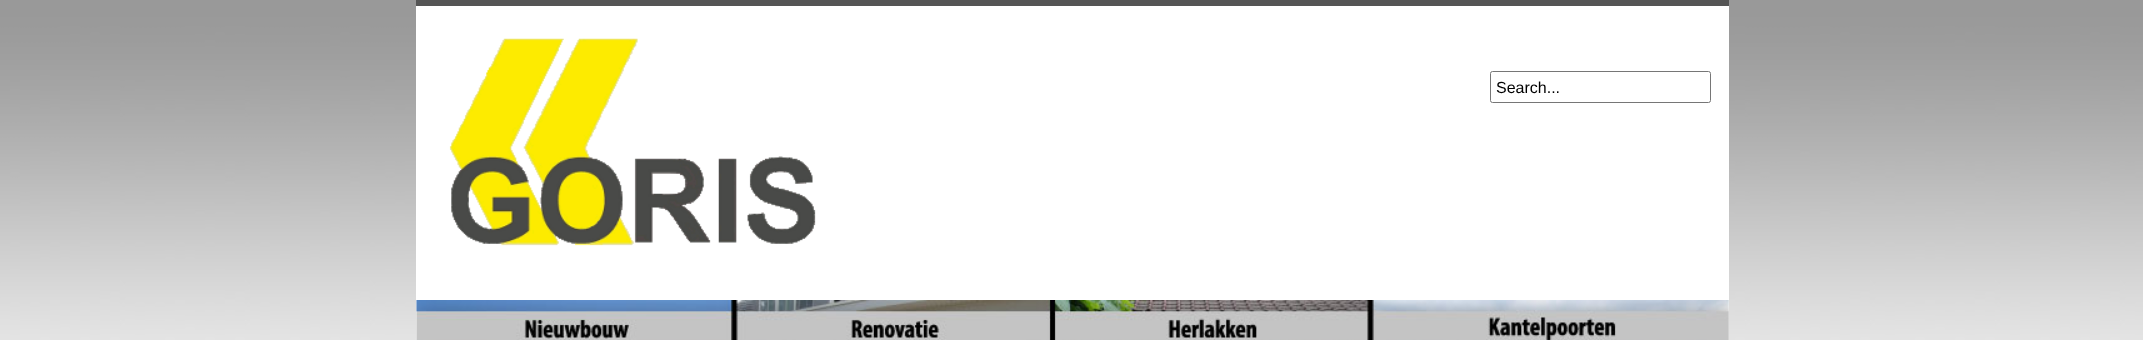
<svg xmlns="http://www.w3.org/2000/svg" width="2143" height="340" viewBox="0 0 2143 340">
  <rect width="100%" height="100%" fill="rgb(255,255,255)"/>
  <image x="0" y="0" width="2143" height="340" href="pic1.png"/>
  <rect x="416" y="6" width="1313" height="334" fill="rgb(255,255,255)"/>
  <rect x="416" y="0" width="1313" height="6" fill="rgb(85,85,85)"/>
  <image x="449" y="38" width="367" height="208" href="pic2.png"/>
  <rect x="1490.5" y="71.5" width="220" height="31" rx="2" fill="none" stroke="rgb(118,118,118)"/>
  <text x="1496" y="93" font-family="Liberation Sans" font-size="16" fill="rgb(0,0,0)">Search...</text>
  <image x="416" y="300" width="1313" height="40" href="pic3.png"/>
</svg>
